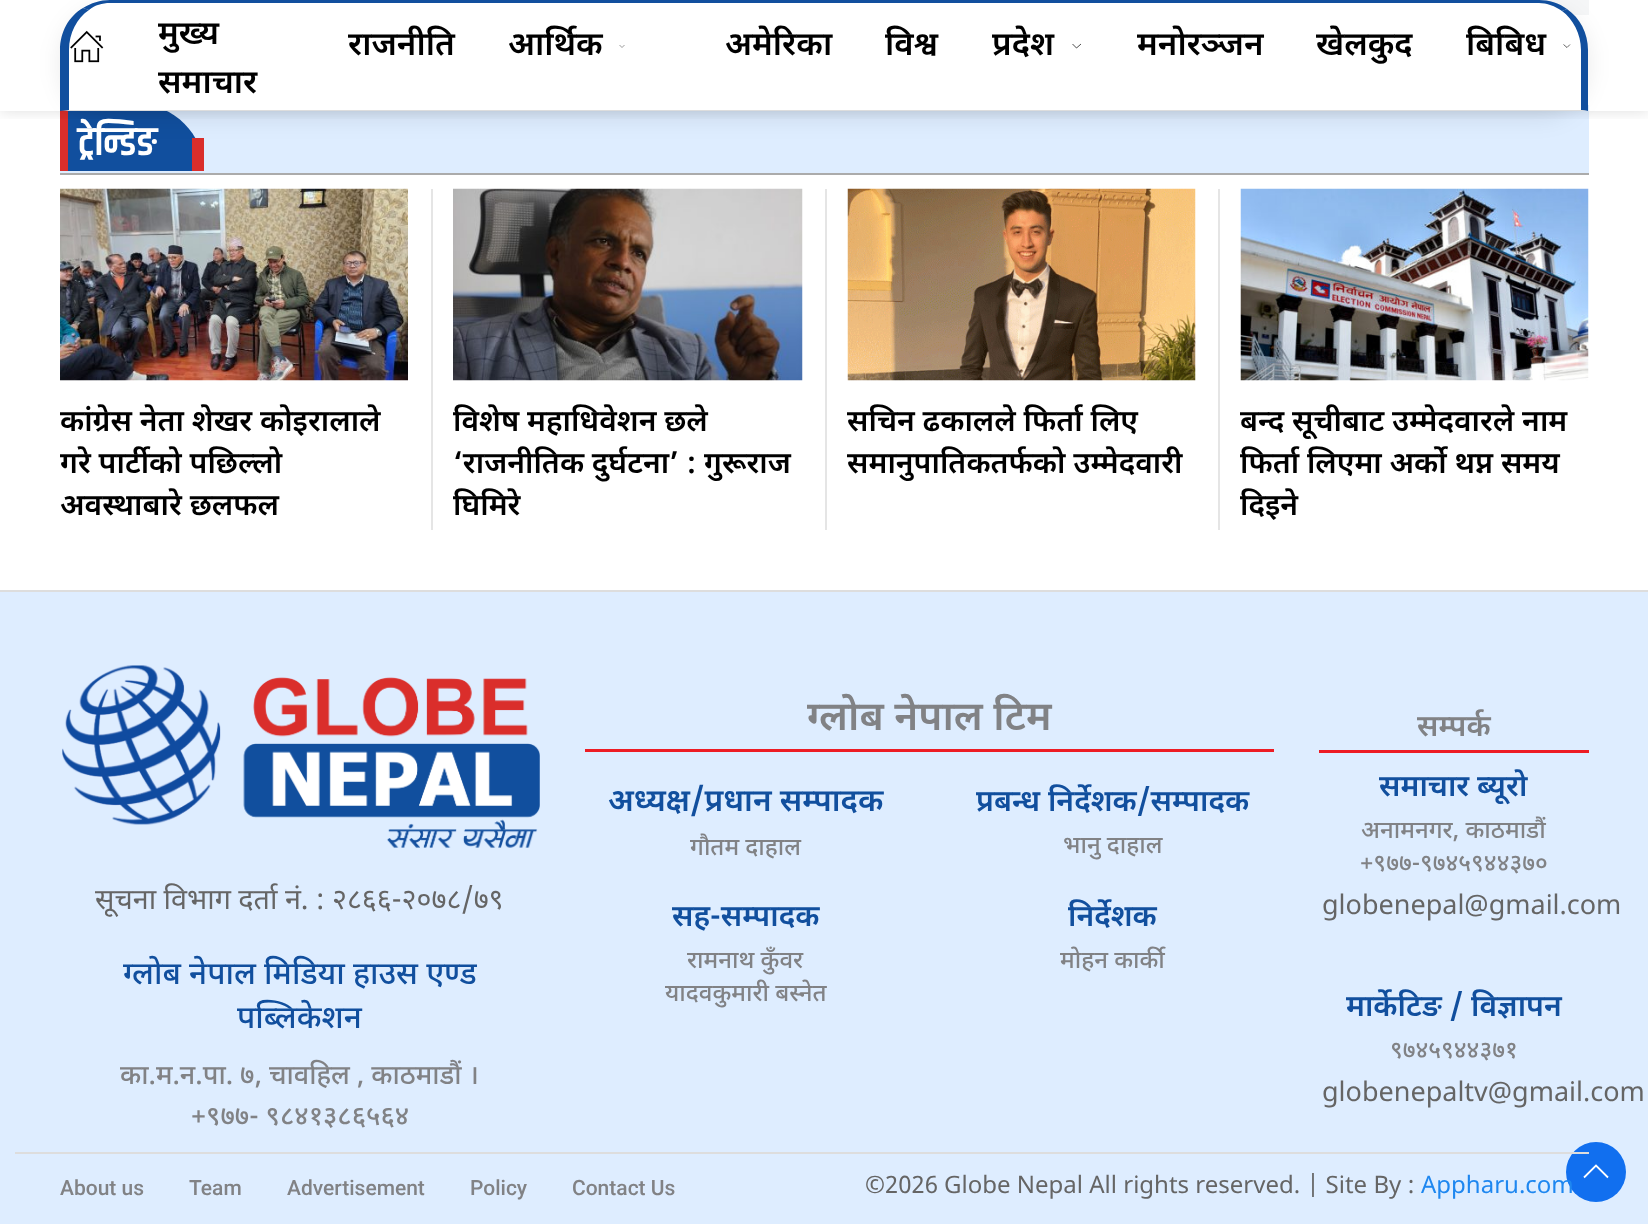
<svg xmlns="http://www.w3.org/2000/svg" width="1648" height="1224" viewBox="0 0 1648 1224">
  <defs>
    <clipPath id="clip1"><rect x="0" y="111" width="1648" height="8"/></clipPath>
  </defs>
  <rect width="100%" height="100%" fill="rgb(255,255,255)"/>
  <rect x="1539" y="0" width="50" height="15" fill="rgb(245,246,247)"/>
  <rect x="60" y="105" width="1529" height="68" fill="rgb(222,237,255)"/>
  <path d="M60 104H137C174 104 204 134 204 171H60Z" fill="rgb(17,79,158)"/>
  <rect x="60" y="104" width="8" height="67" fill="rgb(218,46,43)"/>
  <g clip-path="url(#clip1)">
    <rect x="0" y="0" width="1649" height="111" fill="rgba(0,0,0,0.13)" filter="blur(7.5px)"/>
  </g>
  <rect x="192" y="138" width="12" height="33" fill="rgb(218,46,43)"/>
  <rect x="60" y="8" width="1529" height="111" rx="50" fill="rgba(0,0,0,0.08)" filter="blur(11px)"/>
  <path d="M110 3H1539C1562 3 1581 24 1581 50V110H69V50C69 24 87 3 110 3Z" fill="rgb(255,255,255)"/>
  <path d="M110 0C100 0 91 3 83 8L89 10C95 5 102 3 110 3H1539C1547 3 1555 6 1562 11L1567 9C1559 3 1549 0 1539 0Z" fill="rgb(17,79,158)"/>
  <path d="M1567 9C1580 18 1588 33 1588 50V111L1581 110V50C1581 34 1573 19 1562 11Z" fill="rgb(17,79,158)"/>
  <path d="M1588 111L1581 110H69L60 111Z" fill="rgb(221,221,221)"/>
  <path d="M60 111L69 110V50C69 33 77 18 89 10L83 8C69 16 60 32 60 50Z" fill="rgb(17,79,158)"/>
  <image x="70" y="30" width="34" height="33" href="pic1.png"/>
  <g font-family="Noto Sans Devanagari" font-size="33" font-weight="600" fill="rgb(0,0,0)">
    <text>
      <tspan x="158" y="44">मुख्य</tspan>
      <tspan x="158" y="93">समाचार</tspan>
    </text>
    <text x="348" y="55">राजनीति</text>
    <text x="508" y="55">आर्थिक</text>
  </g>
  <path d="M624.5 45L622 47.5L619.5 45" fill="none" stroke="rgb(0,0,0)" stroke-width="0.4"/>
  <g font-family="Noto Sans Devanagari" font-size="33" font-weight="600" fill="rgb(0,0,0)">
    <text x="725" y="55">अमेरिका</text>
    <text x="885" y="55">विश्व</text>
    <text x="992" y="55">प्रदेश</text>
  </g>
  <path d="M1081 44L1076.5 48L1072.5 44" fill="none" stroke="rgb(0,0,0)" stroke-width="0.7"/>
  <g font-family="Noto Sans Devanagari" font-size="33" font-weight="600" fill="rgb(0,0,0)">
    <text x="1137" y="55">मनोरञ्जन</text>
    <text x="1316" y="55">खेलकुद</text>
    <text x="1466" y="55">बिबिध</text>
  </g>
  <path d="M1570 44.5L1567 47.5L1563.5 44.5" fill="none" stroke="rgb(0,0,0)" stroke-width="0.6"/>
  <rect x="60" y="173" width="1529" height="2" fill="rgb(171,171,171)"/>
  <text x="78" y="155" font-family="Khand" font-size="40.5" font-weight="600" fill="rgb(255,255,255)">ट्रेन्डिङ</text>
  <image x="60" y="188" width="348" height="193" href="pic2.png"/>
  <g font-family="Noto Sans Devanagari" font-size="30" font-weight="600" fill="rgb(0,0,0)">
    <text>
      <tspan x="60" y="431">कांग्रेस नेता शेखर कोइरालाले</tspan>
      <tspan x="60" y="473">गरे पार्टीको पछिल्लो</tspan>
      <tspan x="60" y="515">अवस्थाबारे छलफल</tspan>
    </text>
  </g>
  <rect x="431" y="189" width="2" height="341" fill="rgb(229,229,229)"/>
  <image x="453" y="188" width="350" height="193" href="pic3.png"/>
  <g font-family="Noto Sans Devanagari" font-size="30" font-weight="600" fill="rgb(0,0,0)">
    <text>
      <tspan x="453" y="431">विशेष महाधिवेशन छले</tspan>
      <tspan x="453" y="473">‘राजनीतिक दुर्घटना’ : गुरूराज</tspan>
      <tspan x="453" y="515">घिमिरे</tspan>
    </text>
  </g>
  <rect x="825" y="189" width="2" height="341" fill="rgb(229,229,229)"/>
  <image x="847" y="188" width="349" height="193" href="pic4.png"/>
  <g font-family="Noto Sans Devanagari" font-size="30" font-weight="600" fill="rgb(0,0,0)">
    <text>
      <tspan x="847" y="431">सचिन ढकालले फिर्ता लिए</tspan>
      <tspan x="847" y="473">समानुपातिकतर्फको उम्मेदवारी</tspan>
    </text>
  </g>
  <rect x="1218" y="189" width="2" height="341" fill="rgb(229,229,229)"/>
  <image x="1240" y="188" width="349" height="193" href="pic5.png"/>
  <g font-family="Noto Sans Devanagari" font-size="30" font-weight="600" fill="rgb(0,0,0)">
    <text>
      <tspan x="1240" y="431">बन्द सूचीबाट उम्मेदवारले नाम</tspan>
      <tspan x="1240" y="473">फिर्ता लिएमा अर्को थप्न समय</tspan>
      <tspan x="1240" y="515">दिइने</tspan>
    </text>
  </g>
  <rect x="0" y="592" width="1648" height="632" fill="rgb(222,237,255)"/>
  <rect x="0" y="590" width="1648" height="2" fill="rgb(221,221,221)"/>
  <image x="62" y="665" width="478" height="183" href="pic6.png"/>
  <text x="95" y="909" font-family="Noto Sans Devanagari" font-size="28.75" fill="rgb(101,101,101)">सूचना विभाग दर्ता नं. : २८६६-२०७८/७९</text>
  <g font-family="Noto Sans Devanagari" font-size="31.5" font-weight="500" fill="rgb(17,79,158)">
    <text x="123" y="984">ग्लोब नेपाल मिडिया हाउस एण्ड</text>
    <text x="237" y="1028">पब्लिकेशन</text>
  </g>
  <g font-family="Noto Sans Devanagari" font-size="27" font-weight="500" fill="rgb(129,130,133)">
    <text x="120" y="1084">का.म.न.पा. ७, चावहिल , काठमाडौं ।</text>
    <text x="191" y="1125">+९७७- ९८४१३८६५६४</text>
  </g>
  <rect x="585" y="749" width="689" height="3" fill="rgb(237,28,36)"/>
  <text x="807" y="730" font-family="Noto Sans Devanagari" font-size="40.5" font-weight="600" fill="rgb(129,130,133)">ग्लोब नेपाल टिम</text>
  <text x="608" y="811" font-family="Noto Sans Devanagari" font-size="31.5" font-weight="600" fill="rgb(17,79,158)">अध्यक्ष/प्रधान सम्पादक</text>
  <text x="690" y="855" font-family="Noto Sans Devanagari" font-size="24" font-weight="500" fill="rgb(129,130,133)">गौतम दाहाल</text>
  <text x="976" y="811" font-family="Noto Sans Devanagari" font-size="30" font-weight="600" fill="rgb(17,79,158)">प्रबन्ध निर्देशक/सम्पादक</text>
  <text x="1063" y="853" font-family="Noto Sans Devanagari" font-size="24" font-weight="500" fill="rgb(129,130,133)">भानु दाहाल</text>
  <text x="672" y="926" font-family="Noto Sans Devanagari" font-size="30" font-weight="600" fill="rgb(17,79,158)">सह-सम्पादक</text>
  <g font-family="Noto Sans Devanagari" font-size="24" font-weight="500" fill="rgb(129,130,133)">
    <text x="687" y="968">रामनाथ कुँवर</text>
    <text x="665" y="1001">यादवकुमारी बस्नेत</text>
  </g>
  <text x="1068" y="926" font-family="Noto Sans Devanagari" font-size="30" font-weight="600" fill="rgb(17,79,158)">निर्देशक</text>
  <text x="1060" y="968" font-family="Noto Sans Devanagari" font-size="24" font-weight="500" fill="rgb(129,130,133)">मोहन कार्की</text>
  <rect x="1319" y="750" width="270" height="3" fill="rgb(237,28,36)"/>
  <text x="1417" y="736" font-family="Noto Sans Devanagari" font-size="30" font-weight="600" fill="rgb(129,130,133)">सम्पर्क</text>
  <text x="1379" y="796" font-family="Noto Sans Devanagari" font-size="30" font-weight="600" fill="rgb(17,79,158)">समाचार ब्यूरो</text>
  <g font-family="Noto Sans Devanagari" font-size="24" font-weight="500" fill="rgb(129,130,133)">
    <text x="1361" y="838">अनामनगर, काठमाडौं</text>
    <text x="1360" y="871">+९७७-९७४५९४४३७०</text>
  </g>
  <text x="1322" y="914" font-family="Noto Sans Devanagari" font-size="27" fill="rgb(101,101,101)">globenepal@gmail.com</text>
  <text x="1346" y="1016" font-family="Noto Sans Devanagari" font-size="30" font-weight="600" fill="rgb(17,79,158)">मार्केटिङ / विज्ञापन</text>
  <text x="1390" y="1058" font-family="Noto Sans Devanagari" font-size="24" font-weight="500" fill="rgb(129,130,133)">९७४५९४४३७१</text>
  <text x="1322" y="1101" font-family="Noto Sans Devanagari" font-size="27" fill="rgb(101,101,101)">globenepaltv@gmail.com</text>
  <circle cx="1596" cy="1172" r="30" fill="rgb(17,111,239)"/>
  <rect x="15" y="1152" width="1574" height="2" fill="rgb(221,221,221)"/>
  <g font-family="Roboto" font-size="21" font-weight="500" fill="rgb(129,130,133)">
    <text x="60" y="1195">About us</text>
    <text x="189" y="1195">Team</text>
    <text x="287" y="1195">Advertisement</text>
    <text x="470" y="1195">Policy</text>
    <text x="572" y="1195">Contact Us</text>
  </g>
  <text x="865" y="1193" font-family="Noto Sans Devanagari" font-size="24" fill="rgb(101,101,101)">©2026 Globe Nepal All rights reserved. | Site By :</text>
  <text x="1421" y="1193" font-family="Noto Sans Devanagari" font-size="24" fill="rgb(30,135,240)">Appharu.com</text>
  <path d="M1584 1177.5L1596 1165.5L1608 1177.5" fill="none" stroke="rgb(255,255,255)" stroke-width="1.8"/>
</svg>
